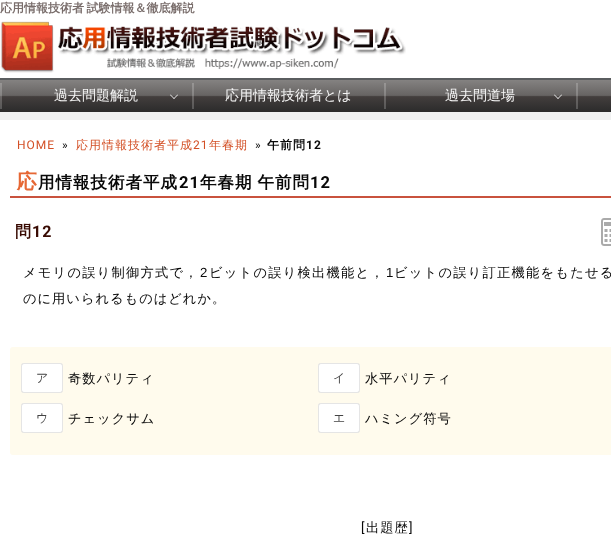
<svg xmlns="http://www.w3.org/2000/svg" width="611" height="534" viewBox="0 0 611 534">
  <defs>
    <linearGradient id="g1" gradientUnits="userSpaceOnUse" x1="480" y1="80" x2="480" y2="112"><stop offset="0" stop-color="rgb(132,130,129)"/><stop offset="0.48" stop-color="rgb(103,100,99)"/><stop offset="0.52" stop-color="rgb(67,62,61)"/><stop offset="1" stop-color="rgb(43,43,43)"/></linearGradient>
    <linearGradient id="g2" gradientUnits="userSpaceOnUse" x1="480" y1="80" x2="480" y2="112"><stop offset="0" stop-color="rgb(157,155,154)"/><stop offset="0.48" stop-color="rgb(133,131,130)"/><stop offset="0.52" stop-color="rgb(105,101,100)"/><stop offset="1" stop-color="rgb(85,85,85)"/></linearGradient>
  </defs>
  <rect width="100%" height="100%" fill="rgb(240,241,241)"/>
  <rect x="0" y="0" width="611" height="78" fill="rgb(255,255,255)"/>
  <text x="0" y="12" word-spacing="-1" font-family="WenQuanYi Zen Hei" font-size="12" font-weight="bold" fill="rgb(121,109,107)">応用情報技術者 試験情報＆徹底解説</text>
  <image x="0" y="21" width="406" height="52" href="pic1.png"/>
  <rect x="0" y="80" width="611" height="32" fill="url(#g1)"/>
  <rect x="576" y="83" width="2" height="26" fill="url(#g2)"/>
  <rect x="384" y="83" width="2" height="26" fill="url(#g2)"/>
  <rect x="192" y="83" width="2" height="26" fill="url(#g2)"/>
  <rect x="0" y="83" width="2" height="26" fill="url(#g2)"/>
  <rect x="0" y="78" width="611" height="2" fill="rgb(90,93,95)"/>
  <text x="54" y="100" font-family="WenQuanYi Zen Hei" font-size="14" font-weight="500" fill="rgb(246,246,246)">過去問題解説</text>
  <path d="M177.5 94.5L178 95L174 99L173.5 98.5Z" fill="rgb(238,238,238)"/>
  <path d="M170.5 94.5L174.5 98.5L174 99L170 95Z" fill="rgb(238,238,238)"/>
  <g font-family="WenQuanYi Zen Hei" font-size="14" font-weight="500" fill="rgb(246,246,246)">
    <text x="225" y="100">応用情報技術者とは</text>
    <text x="445" y="100">過去問道場</text>
  </g>
  <path d="M561.5 94.5L562 95L558 99L557.5 98.5Z" fill="rgb(238,238,238)"/>
  <path d="M554.5 94.5L558.5 98.5L558 99L554 95Z" fill="rgb(238,238,238)"/>
  <rect x="0" y="120" width="611" height="414" fill="rgb(255,255,255)"/>
  <text x="17" y="149" font-family="Roboto" font-size="12" letter-spacing="1" fill="rgb(211,79,37)">HOME</text>
  <text x="62" y="149" font-family="Roboto" font-size="12" letter-spacing="1" fill="rgb(9,9,9)">»</text>
  <text x="76" y="149" font-family="WenQuanYi Zen Hei" font-size="12" font-weight="500" letter-spacing="1" fill="rgb(211,79,37)">応用情報技術者平成</text>
  <text x="193" y="149" font-family="Roboto" font-size="12" letter-spacing="1" fill="rgb(211,79,37)">21</text>
  <text x="209" y="149" font-family="WenQuanYi Zen Hei" font-size="12" font-weight="500" letter-spacing="1" fill="rgb(211,79,37)">年春期</text>
  <text x="255" y="149" font-family="Roboto" font-size="12" letter-spacing="1" fill="rgb(9,9,9)">»</text>
  <text x="267" y="149" font-family="WenQuanYi Zen Hei" font-size="12" font-weight="bold" letter-spacing="1" fill="rgb(9,9,9)">午前問</text>
  <text x="306" y="149" font-family="Roboto" font-size="12" font-weight="bold" letter-spacing="1" fill="rgb(9,9,9)">12</text>
  <rect x="10" y="196" width="601" height="2" fill="rgb(201,82,62)"/>
  <text x="17" y="188" font-family="Noto Sans" font-size="20" font-weight="bold" letter-spacing="1" fill="rgb(230,103,52)">応</text>
  <text x="38" y="188" font-family="WenQuanYi Zen Hei" font-size="16.5" font-weight="bold" letter-spacing="1" fill="rgb(9,9,9)">用情報技術者平成</text>
  <text x="179" y="188" font-family="Roboto" font-size="16.5" font-weight="bold" letter-spacing="1" fill="rgb(9,9,9)">21</text>
  <text x="200" y="188" word-spacing="-1" font-family="WenQuanYi Zen Hei" font-size="16.5" font-weight="bold" letter-spacing="1" fill="rgb(9,9,9)">年春期 午前問</text>
  <text x="310" y="188" font-family="Roboto" font-size="16.5" font-weight="bold" letter-spacing="1" fill="rgb(9,9,9)">12</text>
  <text x="15" y="237" font-family="WenQuanYi Zen Hei" font-size="16" font-weight="bold" letter-spacing="1" fill="rgb(57,11,3)">問</text>
  <text x="32" y="237" font-family="Roboto" font-size="16" font-weight="bold" letter-spacing="1" fill="rgb(57,11,3)">12</text>
  <image x="601" y="218" width="10" height="28" href="pic2.png"/>
  <text x="23" y="277" font-family="WenQuanYi Zen Hei" font-size="13.25" font-weight="500" letter-spacing="1.25" fill="rgb(9,9,9)">メモリの誤り制御方式で，</text>
  <text x="200" y="277" font-family="Liberation Sans" font-size="13.25" letter-spacing="1.25" fill="rgb(9,9,9)">2</text>
  <text x="209" y="277" font-family="WenQuanYi Zen Hei" font-size="13.25" font-weight="500" letter-spacing="1.25" fill="rgb(9,9,9)">ビットの誤り検出機能と，</text>
  <text x="386" y="277" font-family="Liberation Sans" font-size="13.25" letter-spacing="1.25" fill="rgb(9,9,9)">1</text>
  <text x="394" y="277" font-family="WenQuanYi Zen Hei" font-size="13.25" font-weight="500" letter-spacing="1.25" fill="rgb(9,9,9)">ビットの誤り訂正機能をもたせる</text>
  <text x="23" y="303" font-family="WenQuanYi Zen Hei" font-size="13.25" font-weight="500" letter-spacing="1" fill="rgb(9,9,9)">のに用いられるものはどれか。</text>
  <rect x="10" y="347" width="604" height="108" rx="3" fill="rgb(255,251,237)"/>
  <rect x="21" y="363" width="42" height="30" rx="3" fill="rgba(0,0,0,0.15)" filter="blur(0.5px)"/>
  <rect x="21" y="363" width="42" height="30" rx="3" fill="rgb(255,255,255)"/>
  <rect x="21.5" y="363.5" width="41" height="29" rx="2.5" fill="none" stroke="rgba(0,0,0,0.1)"/>
  <text x="36" y="382" font-family="WenQuanYi Zen Hei" font-size="12" font-weight="500" fill="rgb(68,68,68)">ア</text>
  <text x="68" y="383" font-family="WenQuanYi Zen Hei" font-size="13.25" font-weight="500" letter-spacing="1" fill="rgb(9,9,9)">奇数パリティ</text>
  <rect x="318" y="363" width="42" height="30" rx="3" fill="rgba(0,0,0,0.15)" filter="blur(0.5px)"/>
  <rect x="318" y="363" width="42" height="30" rx="3" fill="rgb(255,255,255)"/>
  <rect x="318.5" y="363.5" width="41" height="29" rx="2.5" fill="none" stroke="rgba(0,0,0,0.1)"/>
  <text x="333" y="382" font-family="WenQuanYi Zen Hei" font-size="12" font-weight="500" fill="rgb(68,68,68)">イ</text>
  <text x="365" y="383" font-family="WenQuanYi Zen Hei" font-size="13.25" font-weight="500" letter-spacing="1" fill="rgb(9,9,9)">水平パリティ</text>
  <rect x="21" y="403" width="42" height="30" rx="3" fill="rgba(0,0,0,0.15)" filter="blur(0.5px)"/>
  <rect x="21" y="403" width="42" height="30" rx="3" fill="rgb(255,255,255)"/>
  <rect x="21.5" y="403.5" width="41" height="29" rx="2.5" fill="none" stroke="rgba(0,0,0,0.1)"/>
  <text x="36" y="422" font-family="WenQuanYi Zen Hei" font-size="12" font-weight="500" fill="rgb(68,68,68)">ウ</text>
  <text x="68" y="423" font-family="WenQuanYi Zen Hei" font-size="13.25" font-weight="500" letter-spacing="1" fill="rgb(9,9,9)">チェックサム</text>
  <rect x="318" y="403" width="42" height="30" rx="3" fill="rgba(0,0,0,0.15)" filter="blur(0.5px)"/>
  <rect x="318" y="403" width="42" height="30" rx="3" fill="rgb(255,255,255)"/>
  <rect x="318.5" y="403.5" width="41" height="29" rx="2.5" fill="none" stroke="rgba(0,0,0,0.1)"/>
  <text x="333" y="422" font-family="WenQuanYi Zen Hei" font-size="12" font-weight="500" fill="rgb(68,68,68)">エ</text>
  <text x="365" y="423" font-family="WenQuanYi Zen Hei" font-size="13.25" font-weight="500" letter-spacing="1" fill="rgb(9,9,9)">ハミング符号</text>
  <text x="361" y="532" font-family="Roboto" font-size="13.25" letter-spacing="1" fill="rgb(9,9,9)">[</text>
  <text x="366" y="532" font-family="WenQuanYi Zen Hei" font-size="13.25" font-weight="500" letter-spacing="1" fill="rgb(9,9,9)">出題歴</text>
  <text x="409" y="532" font-family="Roboto" font-size="13.25" letter-spacing="1" fill="rgb(9,9,9)">]</text>
</svg>
